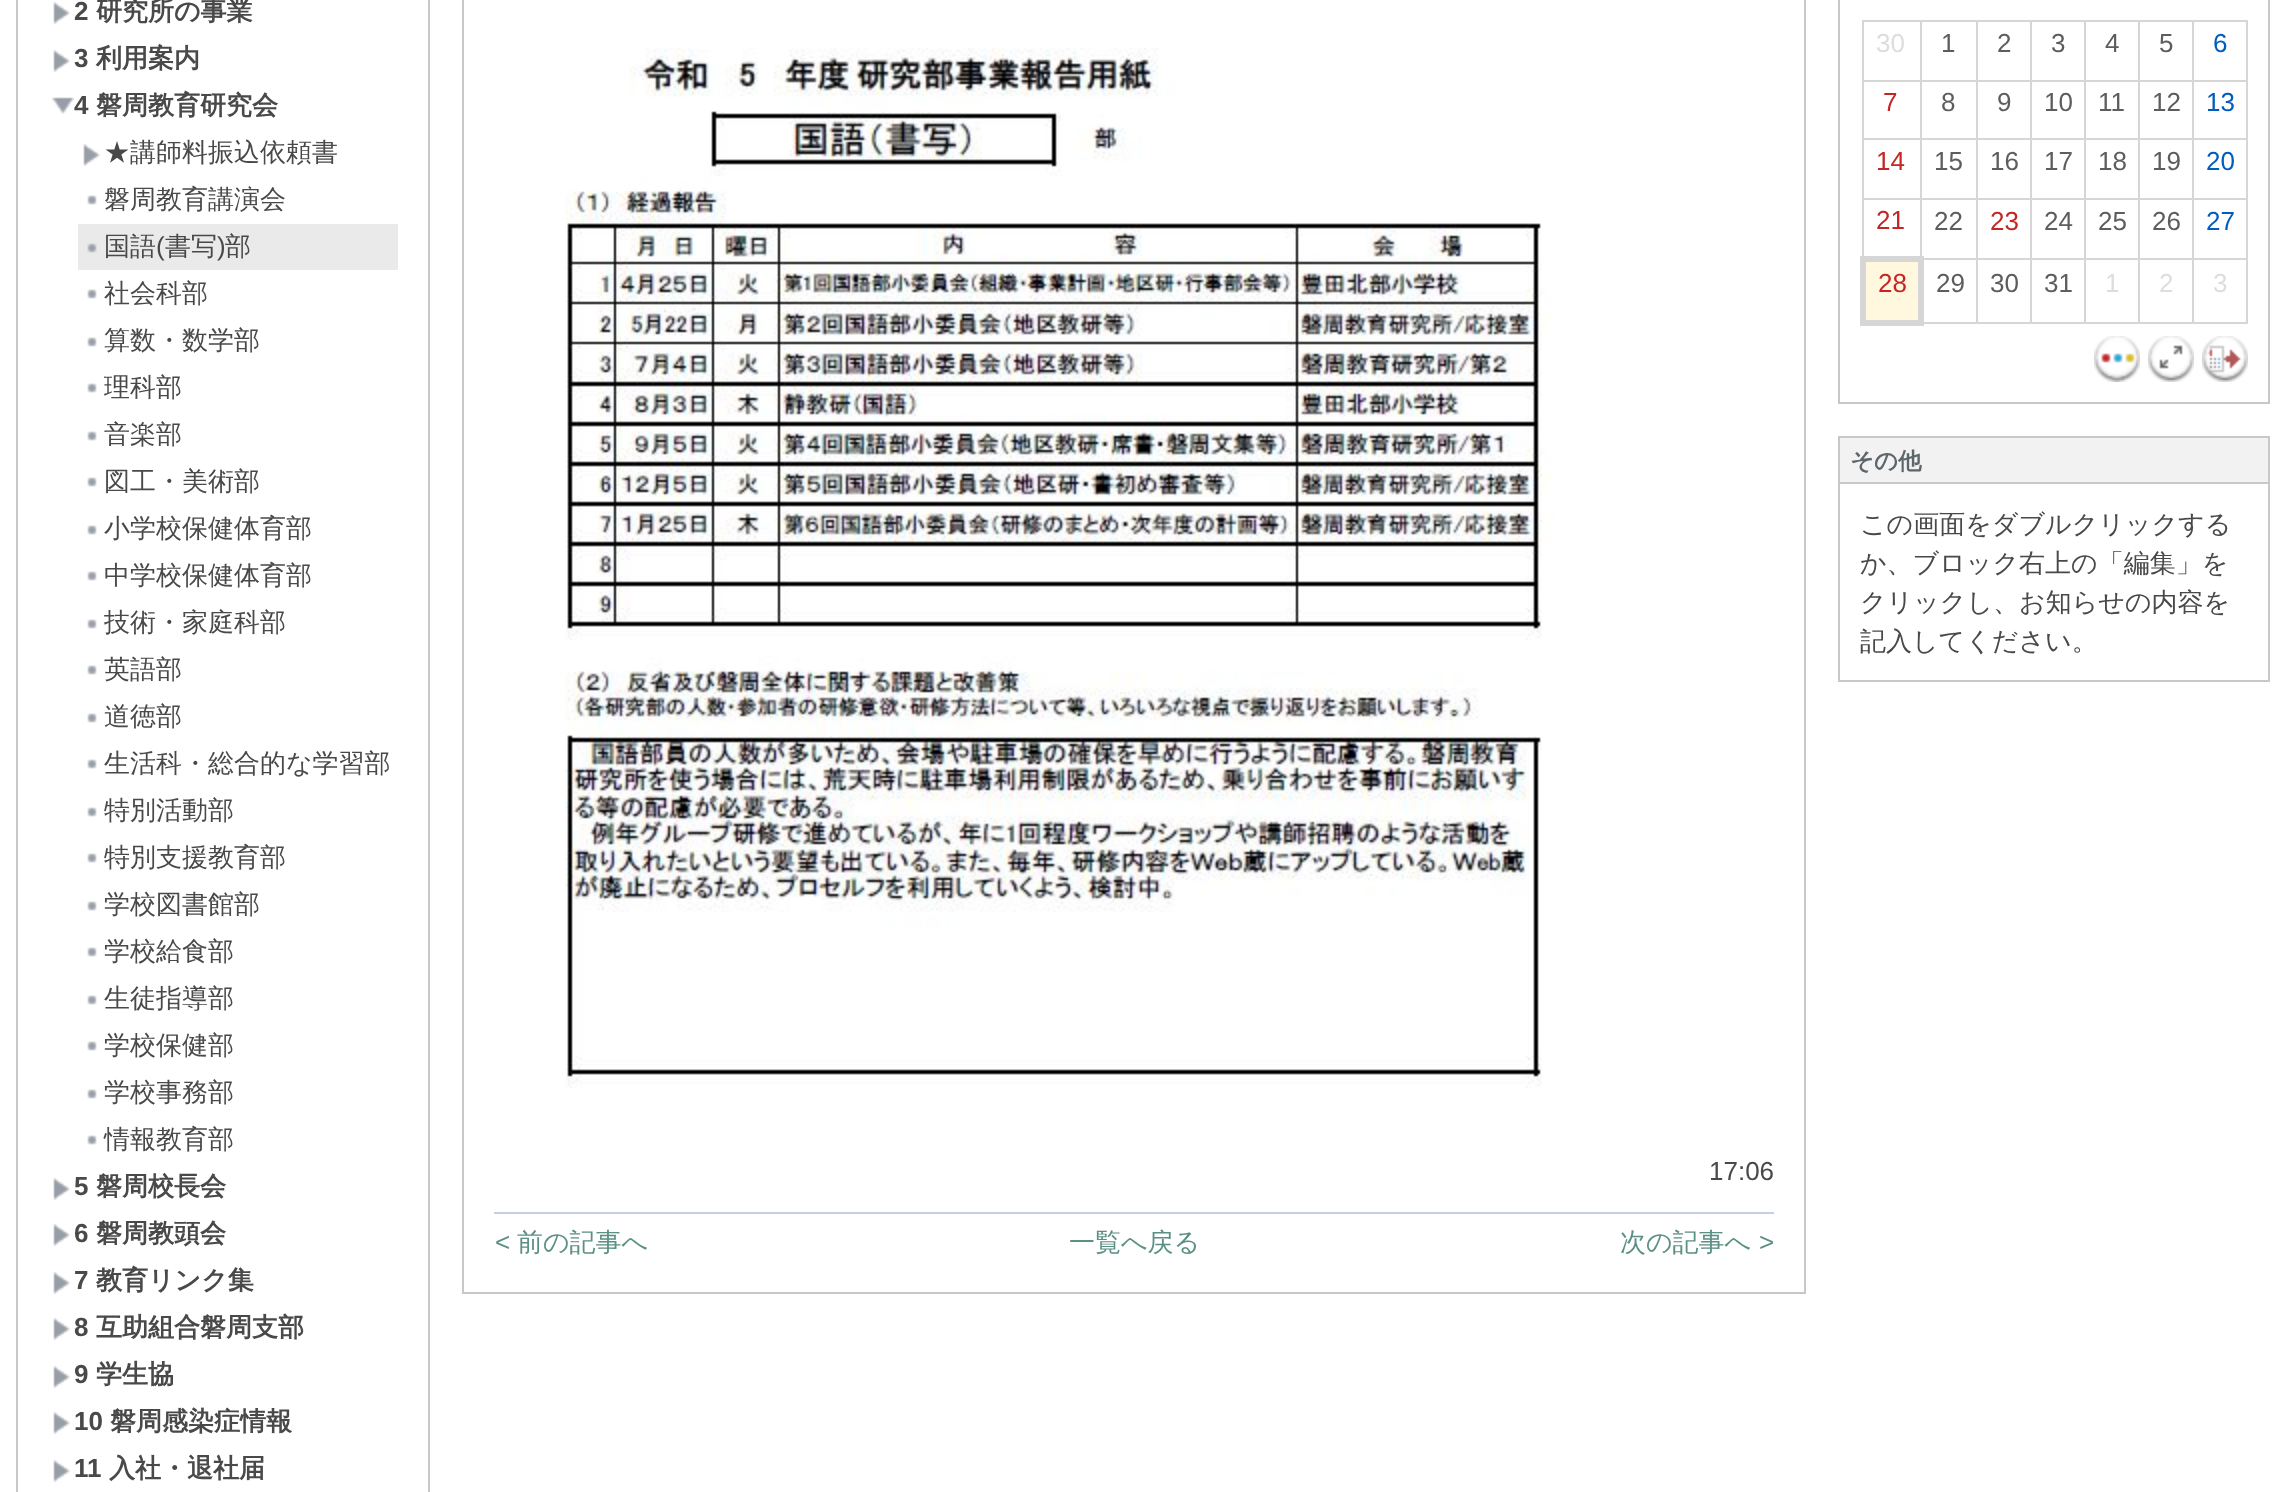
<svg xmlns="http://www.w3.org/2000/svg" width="2286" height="1492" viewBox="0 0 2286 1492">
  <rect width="100%" height="100%" fill="rgb(255,255,255)"/>
  <rect x="428" y="0" width="2" height="1492" fill="rgb(200,200,200)"/>
  <rect x="16" y="0" width="2" height="1492" fill="rgb(200,200,200)"/>
  <image x="53" y="2" width="18" height="22" href="pic1.png"/>
  <text x="74" y="20" font-family="Liberation Sans" font-size="26" font-weight="bold" fill="rgb(73,73,73)">2</text>
  <text x="96" y="20" font-family="WenQuanYi Zen Hei" font-size="26" font-weight="bold" fill="rgb(73,73,73)">研究所の事業</text>
  <image x="53" y="50" width="18" height="22" href="pic1.png"/>
  <text x="74" y="67" font-family="Liberation Sans" font-size="26" font-weight="bold" fill="rgb(73,73,73)">3</text>
  <text x="96" y="67" font-family="WenQuanYi Zen Hei" font-size="26" font-weight="bold" fill="rgb(73,73,73)">利用案内</text>
  <image x="52" y="97" width="22" height="18" href="pic2.png"/>
  <text x="74" y="114" font-family="Liberation Sans" font-size="26" font-weight="bold" fill="rgb(73,73,73)">4</text>
  <text x="96" y="114" font-family="WenQuanYi Zen Hei" font-size="26" font-weight="bold" fill="rgb(73,73,73)">磐周教育研究会</text>
  <image x="83" y="144" width="18" height="22" href="pic1.png"/>
  <text x="104" y="161" font-family="WenQuanYi Zen Hei" font-size="26" font-weight="500" fill="rgb(73,73,73)">★講師料振込依頼書</text>
  <image x="87" y="195" width="10" height="10" href="pic3.png"/>
  <text x="104" y="208" font-family="WenQuanYi Zen Hei" font-size="26" font-weight="500" fill="rgb(73,73,73)">磐周教育講演会</text>
  <rect x="78" y="224" width="320" height="46" fill="rgb(234,234,234)"/>
  <image x="87" y="243" width="10" height="10" href="pic4.png"/>
  <text x="104" y="255" font-family="WenQuanYi Zen Hei" font-size="26" font-weight="500" fill="rgb(73,73,73)">国語</text>
  <text x="156" y="255" font-family="Liberation Sans" font-size="26" fill="rgb(73,73,73)">(</text>
  <text x="165" y="255" font-family="WenQuanYi Zen Hei" font-size="26" font-weight="500" fill="rgb(73,73,73)">書写</text>
  <text x="217" y="255" font-family="Liberation Sans" font-size="26" fill="rgb(73,73,73)">)</text>
  <text x="225" y="255" font-family="WenQuanYi Zen Hei" font-size="26" font-weight="500" fill="rgb(73,73,73)">部</text>
  <image x="87" y="289" width="10" height="10" href="pic3.png"/>
  <text x="104" y="302" font-family="WenQuanYi Zen Hei" font-size="26" font-weight="500" fill="rgb(73,73,73)">社会科部</text>
  <image x="87" y="337" width="10" height="10" href="pic3.png"/>
  <text x="104" y="349" font-family="WenQuanYi Zen Hei" font-size="26" font-weight="500" fill="rgb(73,73,73)">算数・数学部</text>
  <image x="87" y="383" width="10" height="10" href="pic3.png"/>
  <text x="104" y="396" font-family="WenQuanYi Zen Hei" font-size="26" font-weight="500" fill="rgb(73,73,73)">理科部</text>
  <image x="87" y="431" width="10" height="10" href="pic3.png"/>
  <text x="104" y="443" font-family="WenQuanYi Zen Hei" font-size="26" font-weight="500" fill="rgb(73,73,73)">音楽部</text>
  <image x="87" y="477" width="10" height="10" href="pic3.png"/>
  <text x="104" y="490" font-family="WenQuanYi Zen Hei" font-size="26" font-weight="500" fill="rgb(73,73,73)">図工・美術部</text>
  <image x="87" y="525" width="10" height="10" href="pic3.png"/>
  <text x="104" y="537" font-family="WenQuanYi Zen Hei" font-size="26" font-weight="500" fill="rgb(73,73,73)">小学校保健体育部</text>
  <image x="87" y="571" width="10" height="10" href="pic3.png"/>
  <text x="104" y="584" font-family="WenQuanYi Zen Hei" font-size="26" font-weight="500" fill="rgb(73,73,73)">中学校保健体育部</text>
  <image x="87" y="619" width="10" height="10" href="pic3.png"/>
  <text x="104" y="631" font-family="WenQuanYi Zen Hei" font-size="26" font-weight="500" fill="rgb(73,73,73)">技術・家庭科部</text>
  <image x="87" y="665" width="10" height="10" href="pic3.png"/>
  <text x="104" y="678" font-family="WenQuanYi Zen Hei" font-size="26" font-weight="500" fill="rgb(73,73,73)">英語部</text>
  <image x="87" y="713" width="10" height="10" href="pic3.png"/>
  <text x="104" y="725" font-family="WenQuanYi Zen Hei" font-size="26" font-weight="500" fill="rgb(73,73,73)">道徳部</text>
  <image x="87" y="759" width="10" height="10" href="pic3.png"/>
  <text x="104" y="772" font-family="WenQuanYi Zen Hei" font-size="26" font-weight="500" fill="rgb(73,73,73)">生活科・総合的な学習部</text>
  <image x="87" y="807" width="10" height="10" href="pic3.png"/>
  <text x="104" y="819" font-family="WenQuanYi Zen Hei" font-size="26" font-weight="500" fill="rgb(73,73,73)">特別活動部</text>
  <image x="87" y="853" width="10" height="10" href="pic3.png"/>
  <text x="104" y="866" font-family="WenQuanYi Zen Hei" font-size="26" font-weight="500" fill="rgb(73,73,73)">特別支援教育部</text>
  <image x="87" y="901" width="10" height="10" href="pic3.png"/>
  <text x="104" y="913" font-family="WenQuanYi Zen Hei" font-size="26" font-weight="500" fill="rgb(73,73,73)">学校図書館部</text>
  <image x="87" y="947" width="10" height="10" href="pic3.png"/>
  <text x="104" y="960" font-family="WenQuanYi Zen Hei" font-size="26" font-weight="500" fill="rgb(73,73,73)">学校給食部</text>
  <image x="87" y="995" width="10" height="10" href="pic3.png"/>
  <text x="104" y="1007" font-family="WenQuanYi Zen Hei" font-size="26" font-weight="500" fill="rgb(73,73,73)">生徒指導部</text>
  <image x="87" y="1041" width="10" height="10" href="pic3.png"/>
  <text x="104" y="1054" font-family="WenQuanYi Zen Hei" font-size="26" font-weight="500" fill="rgb(73,73,73)">学校保健部</text>
  <image x="87" y="1089" width="10" height="10" href="pic3.png"/>
  <text x="104" y="1101" font-family="WenQuanYi Zen Hei" font-size="26" font-weight="500" fill="rgb(73,73,73)">学校事務部</text>
  <image x="87" y="1135" width="10" height="10" href="pic3.png"/>
  <text x="104" y="1148" font-family="WenQuanYi Zen Hei" font-size="26" font-weight="500" fill="rgb(73,73,73)">情報教育部</text>
  <image x="53" y="1178" width="18" height="22" href="pic1.png"/>
  <text x="74" y="1195" font-family="Liberation Sans" font-size="26" font-weight="bold" fill="rgb(73,73,73)">5</text>
  <text x="96" y="1195" font-family="WenQuanYi Zen Hei" font-size="26" font-weight="bold" fill="rgb(73,73,73)">磐周校長会</text>
  <image x="53" y="1224" width="18" height="22" href="pic1.png"/>
  <text x="74" y="1242" font-family="Liberation Sans" font-size="26" font-weight="bold" fill="rgb(73,73,73)">6</text>
  <text x="96" y="1242" font-family="WenQuanYi Zen Hei" font-size="26" font-weight="bold" fill="rgb(73,73,73)">磐周教頭会</text>
  <image x="53" y="1272" width="18" height="22" href="pic1.png"/>
  <text x="74" y="1289" font-family="Liberation Sans" font-size="26" font-weight="bold" fill="rgb(73,73,73)">7</text>
  <text x="96" y="1289" font-family="WenQuanYi Zen Hei" font-size="26" font-weight="bold" fill="rgb(73,73,73)">教育リンク集</text>
  <image x="53" y="1318" width="18" height="22" href="pic1.png"/>
  <text x="74" y="1336" font-family="Liberation Sans" font-size="26" font-weight="bold" fill="rgb(73,73,73)">8</text>
  <text x="96" y="1336" font-family="WenQuanYi Zen Hei" font-size="26" font-weight="bold" fill="rgb(73,73,73)">互助組合磐周支部</text>
  <image x="53" y="1366" width="18" height="22" href="pic1.png"/>
  <text x="74" y="1383" font-family="Liberation Sans" font-size="26" font-weight="bold" fill="rgb(73,73,73)">9</text>
  <text x="96" y="1383" font-family="WenQuanYi Zen Hei" font-size="26" font-weight="bold" fill="rgb(73,73,73)">学生協</text>
  <image x="53" y="1412" width="18" height="22" href="pic1.png"/>
  <text x="74" y="1430" font-family="Liberation Sans" font-size="26" font-weight="bold" fill="rgb(73,73,73)">10</text>
  <text x="110" y="1430" font-family="WenQuanYi Zen Hei" font-size="26" font-weight="bold" fill="rgb(73,73,73)">磐周感染症情報</text>
  <image x="53" y="1460" width="18" height="22" href="pic1.png"/>
  <text x="74" y="1477" font-family="Liberation Sans" font-size="26" font-weight="bold" fill="rgb(73,73,73)">11</text>
  <text x="109" y="1477" font-family="WenQuanYi Zen Hei" font-size="26" font-weight="bold" fill="rgb(73,73,73)">入社・退社届</text>
  <rect x="2268" y="0" width="2" height="404" fill="rgb(200,200,200)"/>
  <rect x="1838" y="402" width="432" height="2" fill="rgb(200,200,200)"/>
  <rect x="1838" y="0" width="2" height="404" fill="rgb(200,200,200)"/>
  <rect x="2192" y="20" width="56" height="2" fill="rgb(214,214,214)"/>
  <rect x="2192" y="80" width="56" height="2" fill="rgb(214,214,214)"/>
  <rect x="2192" y="138" width="56" height="2" fill="rgb(214,214,214)"/>
  <rect x="2192" y="198" width="56" height="2" fill="rgb(214,214,214)"/>
  <rect x="2192" y="258" width="56" height="2" fill="rgb(214,214,214)"/>
  <rect x="2246" y="258" width="2" height="66" fill="rgb(214,214,214)"/>
  <rect x="2192" y="322" width="56" height="2" fill="rgb(214,214,214)"/>
  <rect x="2192" y="258" width="2" height="66" fill="rgb(214,214,214)"/>
  <rect x="2138" y="258" width="56" height="2" fill="rgb(214,214,214)"/>
  <rect x="2192" y="198" width="2" height="62" fill="rgb(214,214,214)"/>
  <rect x="2138" y="198" width="56" height="2" fill="rgb(214,214,214)"/>
  <rect x="2192" y="138" width="2" height="62" fill="rgb(214,214,214)"/>
  <rect x="2138" y="138" width="56" height="2" fill="rgb(214,214,214)"/>
  <rect x="2192" y="80" width="2" height="60" fill="rgb(214,214,214)"/>
  <rect x="2138" y="80" width="56" height="2" fill="rgb(214,214,214)"/>
  <rect x="2192" y="20" width="2" height="62" fill="rgb(214,214,214)"/>
  <rect x="2138" y="20" width="56" height="2" fill="rgb(214,214,214)"/>
  <rect x="2138" y="322" width="56" height="2" fill="rgb(214,214,214)"/>
  <rect x="2138" y="258" width="2" height="66" fill="rgb(214,214,214)"/>
  <rect x="2084" y="258" width="56" height="2" fill="rgb(214,214,214)"/>
  <rect x="2138" y="198" width="2" height="62" fill="rgb(214,214,214)"/>
  <rect x="2084" y="198" width="56" height="2" fill="rgb(214,214,214)"/>
  <rect x="2138" y="138" width="2" height="62" fill="rgb(214,214,214)"/>
  <rect x="2084" y="138" width="56" height="2" fill="rgb(214,214,214)"/>
  <rect x="2138" y="80" width="2" height="60" fill="rgb(214,214,214)"/>
  <rect x="2084" y="80" width="56" height="2" fill="rgb(214,214,214)"/>
  <rect x="2138" y="20" width="2" height="62" fill="rgb(214,214,214)"/>
  <rect x="2084" y="20" width="56" height="2" fill="rgb(214,214,214)"/>
  <rect x="2084" y="322" width="56" height="2" fill="rgb(214,214,214)"/>
  <rect x="2084" y="258" width="2" height="66" fill="rgb(214,214,214)"/>
  <rect x="2030" y="258" width="56" height="2" fill="rgb(214,214,214)"/>
  <rect x="2084" y="198" width="2" height="62" fill="rgb(214,214,214)"/>
  <rect x="2030" y="198" width="56" height="2" fill="rgb(214,214,214)"/>
  <rect x="2084" y="138" width="2" height="62" fill="rgb(214,214,214)"/>
  <rect x="2030" y="138" width="56" height="2" fill="rgb(214,214,214)"/>
  <rect x="2084" y="80" width="2" height="60" fill="rgb(214,214,214)"/>
  <rect x="2030" y="80" width="56" height="2" fill="rgb(214,214,214)"/>
  <rect x="2084" y="20" width="2" height="62" fill="rgb(214,214,214)"/>
  <rect x="2030" y="20" width="56" height="2" fill="rgb(214,214,214)"/>
  <rect x="2030" y="322" width="56" height="2" fill="rgb(214,214,214)"/>
  <rect x="2030" y="258" width="2" height="66" fill="rgb(214,214,214)"/>
  <rect x="1976" y="258" width="56" height="2" fill="rgb(214,214,214)"/>
  <rect x="2030" y="198" width="2" height="62" fill="rgb(214,214,214)"/>
  <rect x="1976" y="198" width="56" height="2" fill="rgb(214,214,214)"/>
  <rect x="2030" y="138" width="2" height="62" fill="rgb(214,214,214)"/>
  <rect x="1976" y="138" width="56" height="2" fill="rgb(214,214,214)"/>
  <rect x="2030" y="80" width="2" height="60" fill="rgb(214,214,214)"/>
  <rect x="1976" y="80" width="56" height="2" fill="rgb(214,214,214)"/>
  <rect x="2030" y="20" width="2" height="62" fill="rgb(214,214,214)"/>
  <rect x="1976" y="20" width="56" height="2" fill="rgb(214,214,214)"/>
  <rect x="1976" y="322" width="56" height="2" fill="rgb(214,214,214)"/>
  <rect x="1976" y="258" width="2" height="66" fill="rgb(214,214,214)"/>
  <rect x="1920" y="258" width="58" height="2" fill="rgb(214,214,214)"/>
  <rect x="1976" y="198" width="2" height="62" fill="rgb(214,214,214)"/>
  <rect x="1920" y="198" width="58" height="2" fill="rgb(214,214,214)"/>
  <rect x="1976" y="138" width="2" height="62" fill="rgb(214,214,214)"/>
  <rect x="1920" y="138" width="58" height="2" fill="rgb(214,214,214)"/>
  <rect x="1976" y="80" width="2" height="60" fill="rgb(214,214,214)"/>
  <rect x="1920" y="80" width="58" height="2" fill="rgb(214,214,214)"/>
  <rect x="1976" y="20" width="2" height="62" fill="rgb(214,214,214)"/>
  <rect x="1920" y="20" width="58" height="2" fill="rgb(214,214,214)"/>
  <rect x="1920" y="198" width="2" height="62" fill="rgb(214,214,214)"/>
  <rect x="1862" y="198" width="60" height="2" fill="rgb(214,214,214)"/>
  <rect x="1920" y="138" width="2" height="62" fill="rgb(214,214,214)"/>
  <rect x="1862" y="138" width="60" height="2" fill="rgb(214,214,214)"/>
  <rect x="1920" y="80" width="2" height="60" fill="rgb(214,214,214)"/>
  <rect x="1862" y="80" width="60" height="2" fill="rgb(214,214,214)"/>
  <rect x="1920" y="20" width="2" height="62" fill="rgb(214,214,214)"/>
  <rect x="1862" y="20" width="60" height="2" fill="rgb(214,214,214)"/>
  <rect x="1862" y="198" width="2" height="62" fill="rgb(214,214,214)"/>
  <rect x="1862" y="138" width="2" height="62" fill="rgb(214,214,214)"/>
  <rect x="1862" y="80" width="2" height="60" fill="rgb(214,214,214)"/>
  <rect x="1862" y="20" width="2" height="62" fill="rgb(214,214,214)"/>
  <text x="1876" y="52" font-family="Liberation Sans" font-size="26" fill="rgb(221,221,221)">30</text>
  <g font-family="Liberation Sans" font-size="26" fill="rgb(94,92,94)">
    <text x="1941" y="52">1</text>
    <text x="1997" y="52">2</text>
    <text x="2051" y="52">3</text>
    <text x="2105" y="52">4</text>
    <text x="2159" y="52">5</text>
  </g>
  <rect x="2246" y="198" width="2" height="62" fill="rgb(214,214,214)"/>
  <rect x="2246" y="138" width="2" height="62" fill="rgb(214,214,214)"/>
  <rect x="2246" y="80" width="2" height="60" fill="rgb(214,214,214)"/>
  <rect x="2246" y="20" width="2" height="62" fill="rgb(214,214,214)"/>
  <text x="2213" y="52" font-family="Liberation Sans" font-size="26" fill="rgb(0,93,191)">6</text>
  <text x="1883" y="111" font-family="Liberation Sans" font-size="26" fill="rgb(196,38,38)">7</text>
  <g font-family="Liberation Sans" font-size="26" fill="rgb(94,92,94)">
    <text x="1941" y="111">8</text>
    <text x="1997" y="111">9</text>
    <text x="2044" y="111">10</text>
    <text x="2098" y="111">11</text>
    <text x="2152" y="111">12</text>
  </g>
  <text x="2206" y="111" font-family="Liberation Sans" font-size="26" fill="rgb(0,93,191)">13</text>
  <text x="1876" y="170" font-family="Liberation Sans" font-size="26" fill="rgb(196,38,38)">14</text>
  <g font-family="Liberation Sans" font-size="26" fill="rgb(94,92,94)">
    <text x="1934" y="170">15</text>
    <text x="1990" y="170">16</text>
    <text x="2044" y="170">17</text>
    <text x="2098" y="170">18</text>
    <text x="2152" y="170">19</text>
  </g>
  <text x="2206" y="170" font-family="Liberation Sans" font-size="26" fill="rgb(0,93,191)">20</text>
  <text x="1876" y="229" font-family="Liberation Sans" font-size="26" fill="rgb(196,38,38)">21</text>
  <text x="1934" y="230" font-family="Liberation Sans" font-size="26" fill="rgb(94,92,94)">22</text>
  <text x="1990" y="230" font-family="Liberation Sans" font-size="26" fill="rgb(196,38,38)">23</text>
  <g font-family="Liberation Sans" font-size="26" fill="rgb(94,92,94)">
    <text x="2044" y="230">24</text>
    <text x="2098" y="230">25</text>
    <text x="2152" y="230">26</text>
  </g>
  <text x="2206" y="230" font-family="Liberation Sans" font-size="26" fill="rgb(0,93,191)">27</text>
  <rect x="1866" y="262" width="52" height="58" fill="rgb(255,247,222)"/>
  <rect x="1860" y="256" width="64" height="6" fill="rgb(214,214,214)"/>
  <rect x="1920" y="322" width="58" height="2" fill="rgb(214,214,214)"/>
  <rect x="1918" y="256" width="6" height="70" fill="rgb(214,214,214)"/>
  <rect x="1860" y="320" width="64" height="6" fill="rgb(214,214,214)"/>
  <rect x="1860" y="256" width="6" height="70" fill="rgb(214,214,214)"/>
  <text x="1878" y="292" font-family="Liberation Sans" font-size="26" fill="rgb(196,38,38)">28</text>
  <g font-family="Liberation Sans" font-size="26" fill="rgb(94,92,94)">
    <text x="1936" y="292">29</text>
    <text x="1990" y="292">30</text>
    <text x="2044" y="292">31</text>
  </g>
  <g font-family="Liberation Sans" font-size="26" fill="rgb(221,221,221)">
    <text x="2105" y="292">1</text>
    <text x="2159" y="292">2</text>
    <text x="2213" y="292">3</text>
  </g>
  <image x="2094" y="336" width="46" height="46" href="pic5.png"/>
  <image x="2148" y="336" width="46" height="46" href="pic6.png"/>
  <image x="2202" y="336" width="46" height="46" href="pic7.png"/>
  <rect x="1838" y="436" width="432" height="2" fill="rgb(200,200,200)"/>
  <rect x="2268" y="436" width="2" height="246" fill="rgb(200,200,200)"/>
  <rect x="1838" y="680" width="432" height="2" fill="rgb(200,200,200)"/>
  <rect x="1838" y="436" width="2" height="246" fill="rgb(200,200,200)"/>
  <rect x="1840" y="438" width="428" height="44" fill="rgb(242,242,242)"/>
  <rect x="1838" y="482" width="432" height="2" fill="rgb(200,200,200)"/>
  <text x="1850" y="469" font-family="WenQuanYi Zen Hei" font-size="23.5" font-weight="bold" fill="rgb(92,102,107)">その他</text>
  <g font-family="WenQuanYi Zen Hei" font-size="26" font-weight="500" fill="rgb(73,73,73)">
    <text>
      <tspan x="1860" y="533">この画面をダブルクリックする</tspan>
      <tspan x="1860" y="572">か、ブロック右上の「編集」を</tspan>
      <tspan x="1860" y="611">クリックし、お知らせの内容を</tspan>
      <tspan x="1860" y="650">記入してください。</tspan>
    </text>
  </g>
  <rect x="1804" y="0" width="2" height="1294" fill="rgb(200,200,200)"/>
  <rect x="462" y="1292" width="1344" height="2" fill="rgb(200,200,200)"/>
  <rect x="462" y="0" width="2" height="1294" fill="rgb(200,200,200)"/>
  <image x="565" y="48" width="989" height="1040" href="pic8.png"/>
  <rect x="494" y="1212" width="1280" height="2" fill="rgb(199,205,230)"/>
  <text x="1709" y="1180" font-family="Liberation Sans" font-size="26" fill="rgb(73,73,73)">17:06</text>
  <text x="495" y="1251" font-family="Liberation Sans" font-size="26" fill="rgb(92,144,132)">&lt;</text>
  <g font-family="WenQuanYi Zen Hei" font-size="26" font-weight="500" fill="rgb(92,144,132)">
    <text x="517" y="1251">前の記事へ</text>
    <text x="1069" y="1251">一覧へ戻る</text>
    <text x="1620" y="1251">次の記事へ</text>
  </g>
  <text x="1759" y="1251" font-family="Liberation Sans" font-size="26" fill="rgb(92,144,132)">&gt;</text>
</svg>
